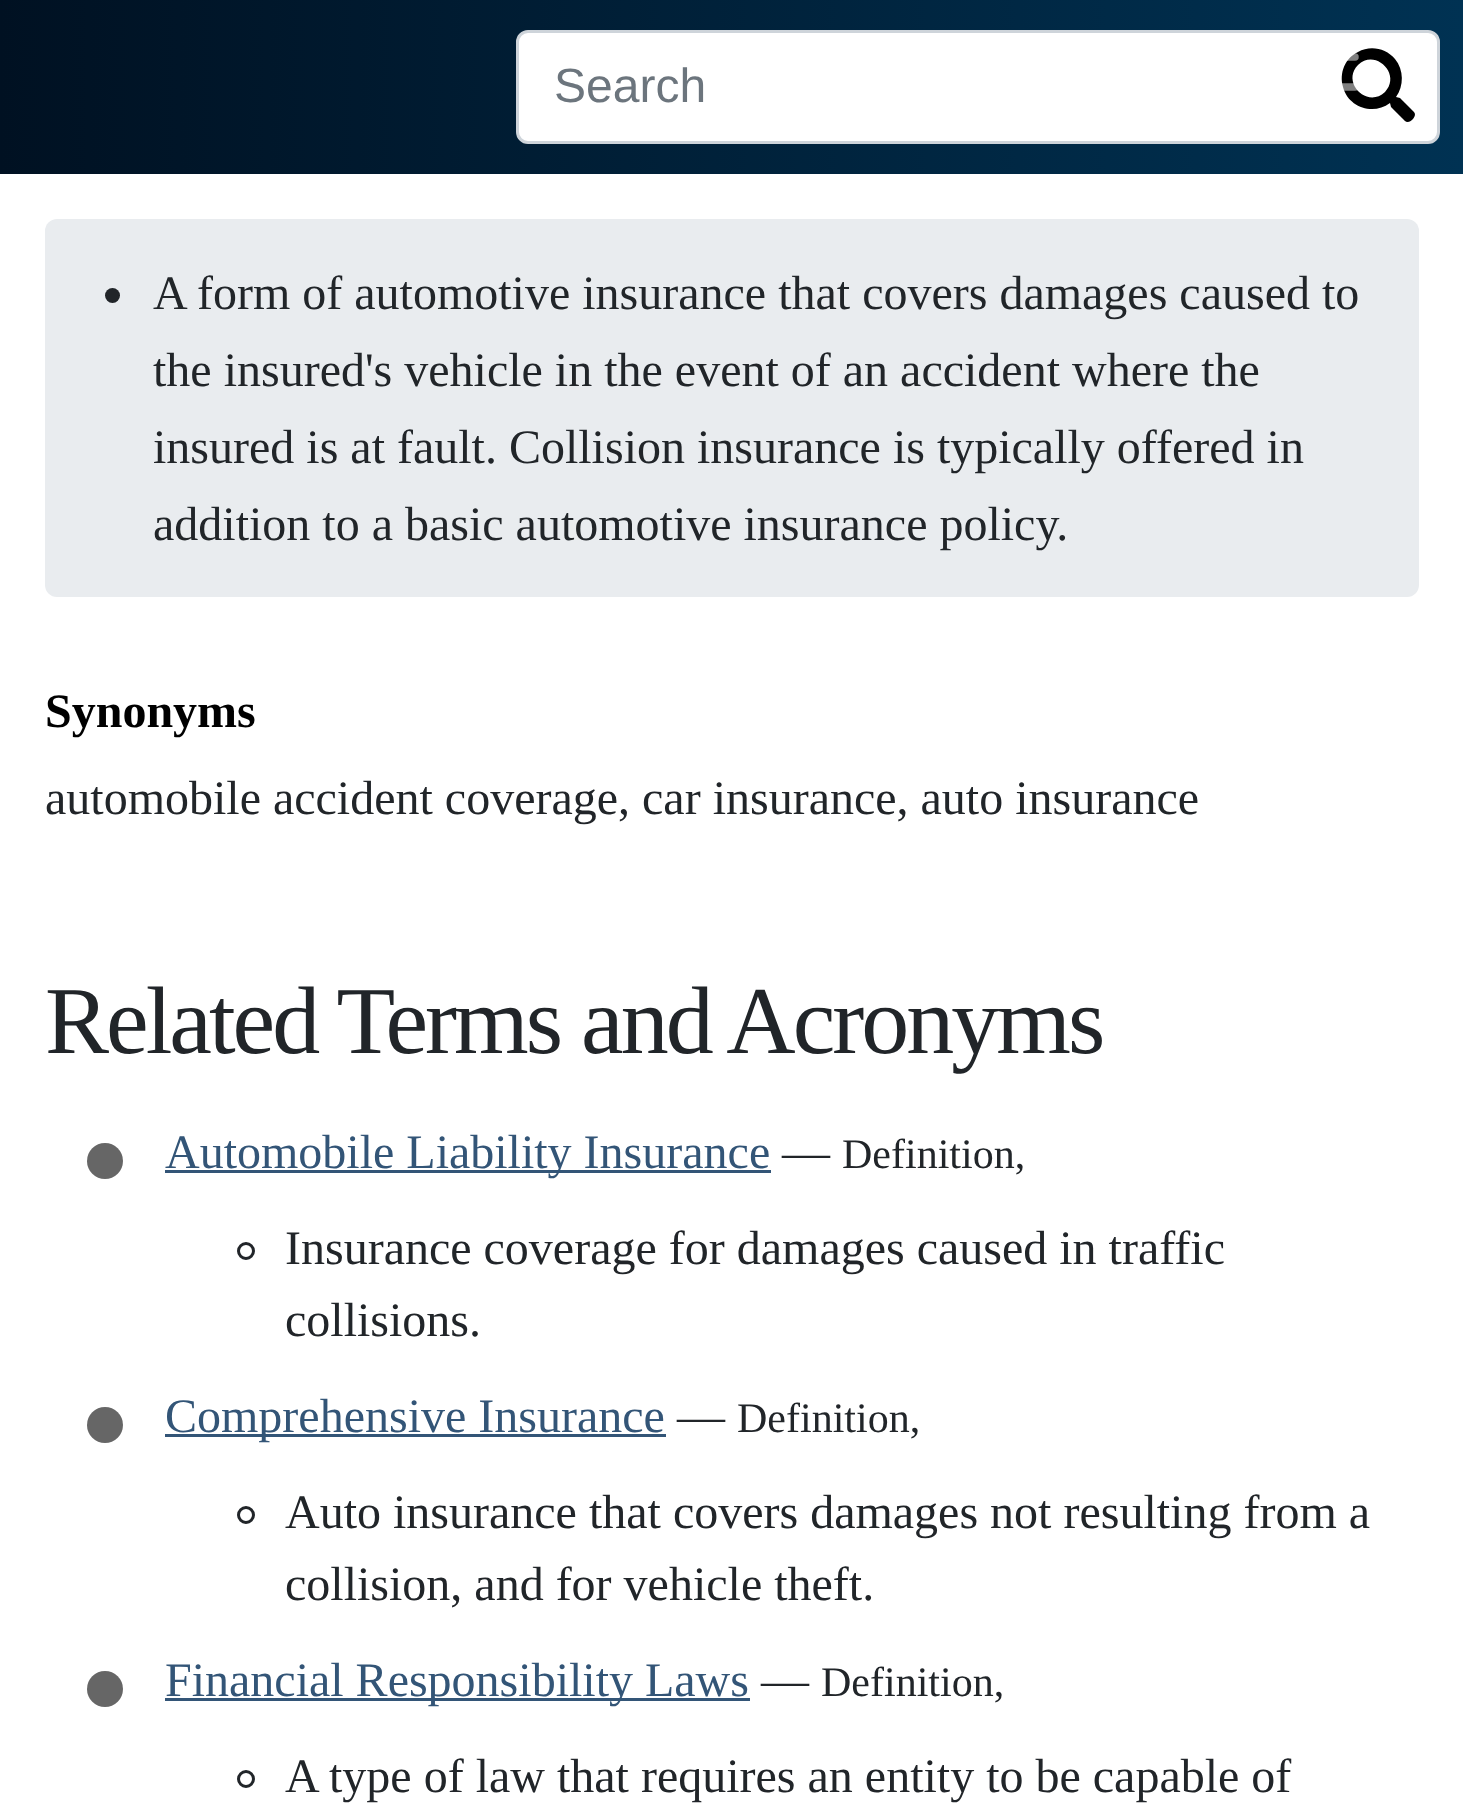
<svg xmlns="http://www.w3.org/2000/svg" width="1463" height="1818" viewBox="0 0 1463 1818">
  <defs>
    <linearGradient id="g1" gradientUnits="userSpaceOnUse" x1="0" y1="87" x2="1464" y2="87"><stop offset="0" stop-color="rgb(0,17,34)"/><stop offset="1" stop-color="rgb(0,50,83)"/></linearGradient>
  </defs>
  <rect width="100%" height="100%" fill="rgb(255,255,255)"/>
  <rect x="0" y="0" width="1463" height="174" fill="url(#g1)"/>
  <rect x="517.5" y="31.5" width="921" height="111" rx="10.5" fill="rgb(255,255,255)" stroke="rgb(206,212,218)" stroke-width="3"/>
  <text x="554" y="102" font-family="Liberation Sans" font-size="48" fill="rgb(108,117,125)">Search</text>
  <path d="M1358 65C1341 82 1367 109 1385 92C1402 74 1375 48 1358 65ZM1396 97L1400 98L1414 112C1418 116 1409 125 1405 121L1391 107L1390 103C1373 116 1348 107 1343 87C1339 73 1345 58 1358 52C1370 45 1386 48 1395 59C1404 70 1404 86 1396 97Z" fill="rgb(0,0,0)"/>
  <path d="M1273 57H1355M1273 87H1355M1273 117H1355" fill="none" stroke="rgba(255,255,255,0.5)" stroke-width="7.5" stroke-linecap="round"/>
  <rect x="45" y="219" width="1374" height="378" rx="12" fill="rgb(233,236,239)"/>
  <circle cx="112.5" cy="295.5" r="7.5" fill="rgb(33,37,41)"/>
  <g font-family="Liberation Serif" font-size="48" fill="rgb(33,37,41)">
    <text>
      <tspan x="153" y="309">A form of automotive insurance that covers damages caused to</tspan>
      <tspan x="153" y="386">the insured's vehicle in the event of an accident where the</tspan>
      <tspan x="153" y="463">insured is at fault. Collision insurance is typically offered in</tspan>
      <tspan x="153" y="540">addition to a basic automotive insurance policy.</tspan>
    </text>
  </g>
  <text x="45" y="727" font-family="Liberation Serif" font-size="48" font-weight="bold" fill="rgb(0,0,0)">Synonyms</text>
  <text x="45" y="814" font-family="Liberation Serif" font-size="48" fill="rgb(33,37,41)">automobile accident coverage, car insurance, auto insurance</text>
  <text x="45" y="1053" font-family="Liberation Serif" font-size="96" letter-spacing="-3" fill="rgb(33,37,41)">Related Terms and Acronyms</text>
  <circle cx="105" cy="1161" r="18" fill="rgb(102,102,102)"/>
  <rect x="165" y="1170" width="606" height="3" fill="rgb(51,85,119)"/>
  <text x="165" y="1168" font-family="Liberation Serif" font-size="48" fill="rgb(51,85,119)">Automobile Liability Insurance</text>
  <text x="782" y="1168" font-family="Liberation Serif" font-size="48" fill="rgb(33,37,41)">—</text>
  <text x="842" y="1168" font-family="Liberation Serif" font-size="42" fill="rgb(33,37,41)">Definition,</text>
  <circle cx="246" cy="1251" r="7.5" fill="none" stroke="rgb(33,37,41)" stroke-width="3"/>
  <g font-family="Liberation Serif" font-size="48" fill="rgb(33,37,41)">
    <text>
      <tspan x="285" y="1264">Insurance coverage for damages caused in traffic</tspan>
      <tspan x="285" y="1336">collisions.</tspan>
    </text>
  </g>
  <circle cx="105" cy="1425" r="18" fill="rgb(102,102,102)"/>
  <rect x="165" y="1434" width="501" height="3" fill="rgb(51,85,119)"/>
  <text x="165" y="1432" font-family="Liberation Serif" font-size="48" fill="rgb(51,85,119)">Comprehensive Insurance</text>
  <text x="677" y="1432" font-family="Liberation Serif" font-size="48" fill="rgb(33,37,41)">—</text>
  <text x="737" y="1432" font-family="Liberation Serif" font-size="42" fill="rgb(33,37,41)">Definition,</text>
  <circle cx="246" cy="1515" r="7.5" fill="none" stroke="rgb(33,37,41)" stroke-width="3"/>
  <g font-family="Liberation Serif" font-size="48" fill="rgb(33,37,41)">
    <text>
      <tspan x="285" y="1528">Auto insurance that covers damages not resulting from a</tspan>
      <tspan x="285" y="1600">collision, and for vehicle theft.</tspan>
    </text>
  </g>
  <circle cx="105" cy="1689" r="18" fill="rgb(102,102,102)"/>
  <rect x="165" y="1698" width="585" height="3" fill="rgb(51,85,119)"/>
  <text x="165" y="1696" font-family="Liberation Serif" font-size="48" fill="rgb(51,85,119)">Financial Responsibility Laws</text>
  <text x="761" y="1696" font-family="Liberation Serif" font-size="48" fill="rgb(33,37,41)">—</text>
  <text x="821" y="1696" font-family="Liberation Serif" font-size="42" fill="rgb(33,37,41)">Definition,</text>
  <circle cx="246" cy="1779" r="7.5" fill="none" stroke="rgb(33,37,41)" stroke-width="3"/>
  <text x="285" y="1792" font-family="Liberation Serif" font-size="48" fill="rgb(33,37,41)">A type of law that requires an entity to be capable of</text>
</svg>
